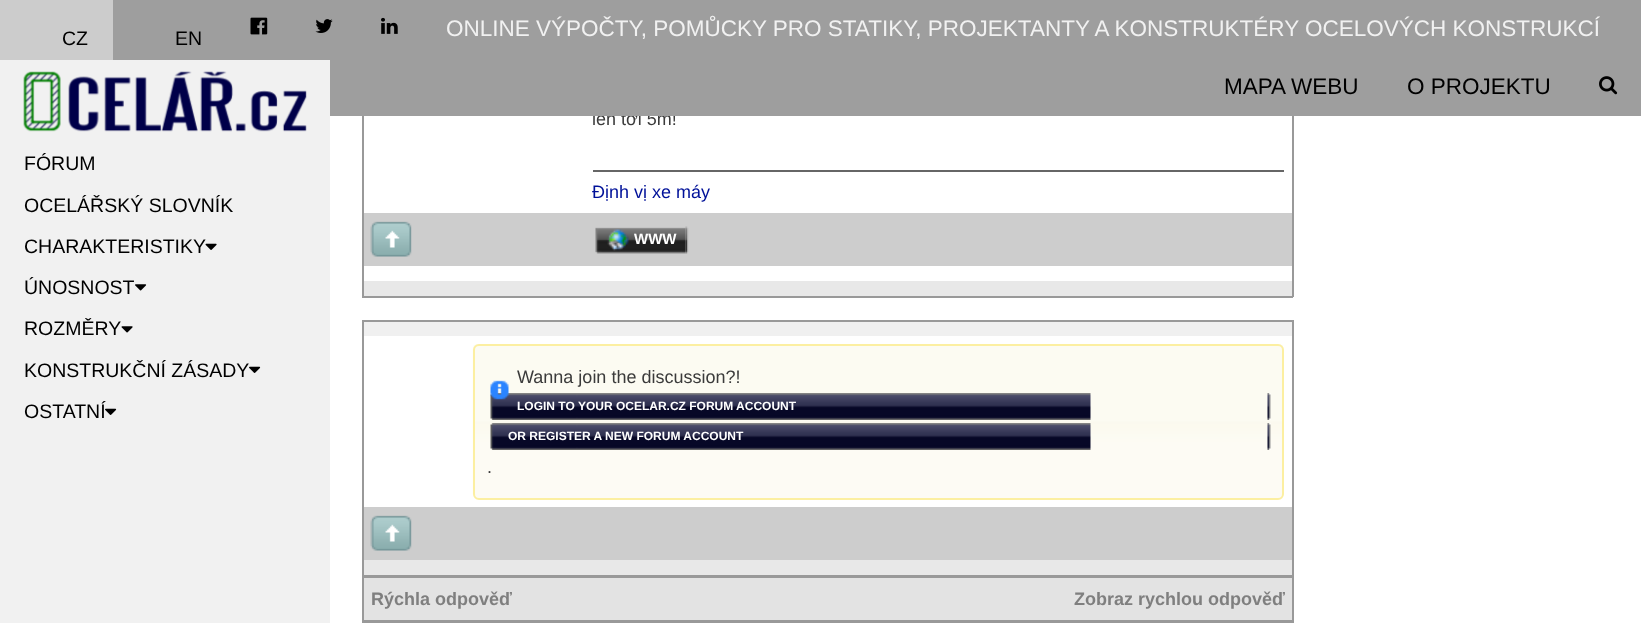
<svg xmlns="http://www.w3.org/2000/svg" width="1641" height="623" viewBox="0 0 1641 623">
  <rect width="100%" height="100%" fill="rgb(255,255,255)"/>
  <text x="592" y="125" font-family="Liberation Sans" font-size="18" fill="rgb(59,59,59)">lên tới 5m!</text>
  <rect x="113" y="0" width="1528" height="116" fill="rgb(158,158,158)"/>
  <image x="250" y="17" width="18" height="18" href="pic1.png"/>
  <image x="315" y="19" width="18" height="14" href="pic2.png"/>
  <image x="381" y="17" width="17" height="17" href="pic3.png"/>
  <text x="446" y="36" font-family="Liberation Sans" font-size="22.5" fill="rgb(241,241,241)">ONLINE VÝPOČTY, POMŮCKY PRO STATIKY, PROJEKTANTY A KONSTRUKTÉRY OCELOVÝCH KONSTRUKCÍ</text>
  <rect x="0" y="0" width="113" height="60" fill="rgb(204,204,204)"/>
  <g font-family="Liberation Sans" font-size="19.5" fill="rgb(0,0,0)">
    <text x="62" y="45">CZ</text>
    <text x="175" y="45">EN</text>
  </g>
  <g font-family="Liberation Sans" font-size="22.5" fill="rgb(0,0,0)">
    <text x="1224" y="94">MAPA WEBU</text>
    <text x="1407" y="94">O PROJEKTU</text>
  </g>
  <image x="1599" y="76" width="19" height="19" href="pic4.png"/>
  <rect x="0" y="60" width="330" height="563" fill="rgb(241,241,241)"/>
  <image x="23" y="71" width="284" height="61" href="pic5.png"/>
  <g font-family="Liberation Sans" font-size="19.5" fill="rgb(0,0,0)">
    <text x="24" y="170">FÓRUM</text>
    <text x="24" y="212">OCELÁŘSKÝ SLOVNÍK</text>
    <text x="24" y="253">CHARAKTERISTIKY</text>
  </g>
  <image x="205" y="243" width="12" height="7" href="pic6.png"/>
  <text x="24" y="294" font-family="Liberation Sans" font-size="19.5" fill="rgb(0,0,0)">ÚNOSNOST</text>
  <image x="135" y="284" width="12" height="7" href="pic7.png"/>
  <text x="24" y="335" font-family="Liberation Sans" font-size="19.5" fill="rgb(0,0,0)">ROZMĚRY</text>
  <image x="121" y="326" width="12" height="7" href="pic8.png"/>
  <text x="24" y="377" font-family="Liberation Sans" font-size="19.5" fill="rgb(0,0,0)">KONSTRUKČNÍ ZÁSADY</text>
  <image x="249" y="366" width="12" height="7" href="pic9.png"/>
  <text x="24" y="418" font-family="Liberation Sans" font-size="19.5" fill="rgb(0,0,0)">OSTATNÍ</text>
  <image x="105" y="408" width="12" height="7" href="pic9.png"/>
  <rect x="1292" y="116" width="2" height="181" fill="rgb(153,153,153)"/>
  <rect x="362" y="296" width="931" height="2" fill="rgb(153,153,153)"/>
  <rect x="362" y="116" width="2" height="181" fill="rgb(153,153,153)"/>
  <rect x="593" y="170" width="691" height="2" fill="rgb(102,102,102)"/>
  <text x="592" y="198" font-family="Liberation Sans" font-size="18" fill="rgb(0,17,153)">Định vị xe máy</text>
  <rect x="364" y="213" width="928" height="53" fill="rgb(205,205,205)"/>
  <image x="370" y="221" width="42" height="36" href="pic10.png"/>
  <image x="685" y="226" width="4" height="28" href="pic11.png"/>
  <image x="595" y="227" width="91" height="27" href="pic12.png"/>
  <image x="607" y="229" width="22" height="22" href="pic13.png"/>
  <text x="634" y="244" font-family="Liberation Sans" font-size="15" font-weight="bold" fill="rgb(255,255,255)">WWW</text>
  <rect x="364" y="281" width="928" height="15" fill="rgb(232,232,232)"/>
  <rect x="362" y="320" width="931" height="2" fill="rgb(153,153,153)"/>
  <rect x="1292" y="320" width="2" height="256" fill="rgb(153,153,153)"/>
  <rect x="362" y="575" width="931" height="3" fill="rgb(153,153,153)"/>
  <rect x="362" y="320" width="2" height="256" fill="rgb(153,153,153)"/>
  <rect x="364" y="322" width="928" height="14" fill="rgb(240,240,240)"/>
  <image x="472" y="344" width="812" height="155" href="pic14.png"/>
  <rect x="474" y="345" width="809" height="154" rx="5" fill="none" stroke="rgb(252,239,161)" stroke-width="2"/>
  <text x="517" y="383" font-family="Liberation Sans" font-size="18" fill="rgb(59,59,59)">Wanna join the discussion?!</text>
  <image x="490" y="393" width="601" height="27" href="pic17.png"/>
  <image x="490" y="380" width="19" height="20" href="pic15.png"/>
  <image x="1267" y="393" width="4" height="27" href="pic16.png"/>
  <text x="517" y="410" font-family="Liberation Sans" font-size="12" font-weight="bold" fill="rgb(255,255,255)">LOGIN TO YOUR OCELAR.CZ FORUM ACCOUNT</text>
  <image x="1267" y="423" width="4" height="27" href="pic18.png"/>
  <image x="490" y="423" width="601" height="27" href="pic19.png"/>
  <text x="508" y="440" font-family="Liberation Sans" font-size="12" font-weight="bold" fill="rgb(255,255,255)">OR REGISTER A NEW FORUM ACCOUNT</text>
  <text x="487" y="473" font-family="Liberation Sans" font-size="18" fill="rgb(59,59,59)">.</text>
  <rect x="364" y="507" width="928" height="53" fill="rgb(205,205,205)"/>
  <image x="370" y="515" width="42" height="36" href="pic10.png"/>
  <rect x="364" y="560" width="928" height="15" fill="rgb(232,232,232)"/>
  <rect x="1292" y="576" width="2" height="45" fill="rgb(153,153,153)"/>
  <rect x="362" y="620" width="931" height="3" fill="rgb(153,153,153)"/>
  <rect x="362" y="576" width="2" height="45" fill="rgb(153,153,153)"/>
  <rect x="364" y="578" width="928" height="42" fill="rgb(227,227,227)"/>
  <g font-family="Liberation Sans" font-size="18" font-weight="bold" fill="rgb(127,127,127)">
    <text x="371" y="605">Rýchla odpověď</text>
    <text x="1074" y="605">Zobraz rychlou odpověď</text>
  </g>
  <rect x="1292" y="621" width="2" height="2" fill="rgb(153,153,153)"/>
</svg>
